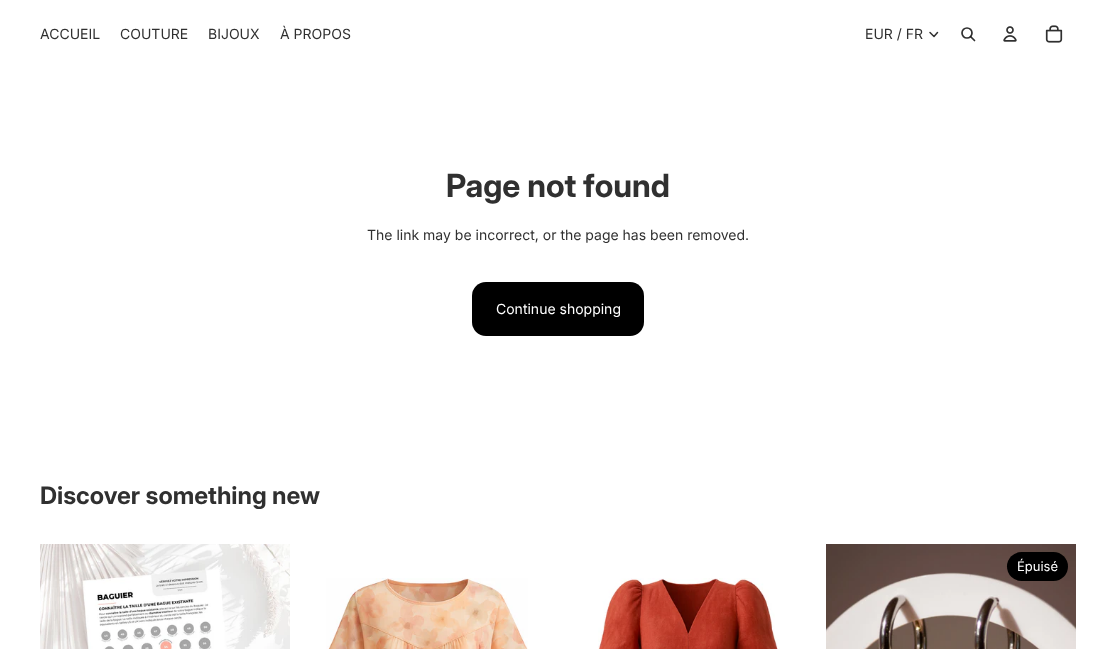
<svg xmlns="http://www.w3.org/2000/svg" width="1116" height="649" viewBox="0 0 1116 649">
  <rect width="100%" height="100%" fill="rgb(255,255,255)"/>
  <g font-family="Inter" font-size="14" fill="rgb(48,48,48)">
    <text x="40" y="39">ACCUEIL</text>
    <text x="120" y="39">COUTURE</text>
    <text x="208" y="39">BIJOUX</text>
    <text x="280" y="39">À PROPOS</text>
    <text x="865" y="39">EUR / FR</text>
  </g>
  <path d="M937.5 32.5L934 36.5L930 32.5" fill="none" stroke="rgb(48,48,48)" stroke-width="1.5" stroke-linecap="round" stroke-linejoin="round"/>
  <circle cx="967" cy="33" r="5" fill="none" stroke="rgb(48,48,48)" stroke-width="1.7"/>
  <path d="M971 37L974.5 40.5" fill="none" stroke="rgba(0,0,0,0.81)" stroke-width="1.7" stroke-linecap="round" stroke-linejoin="round"/>
  <image x="1003" y="26" width="14" height="16" href="pic1.png"/>
  <image x="1045" y="25" width="18" height="18" href="pic2.png"/>
  <text x="446" y="197" font-family="Inter" font-size="32" font-weight="bold" fill="rgb(48,48,48)">Page not found</text>
  <text x="367" y="240" font-family="Inter" font-size="14" fill="rgb(48,48,48)">The link may be incorrect, or the page has been removed.</text>
  <rect x="472" y="282" width="172" height="54" rx="14" fill="rgb(0,0,0)"/>
  <text x="496" y="314" font-family="Inter" font-size="14" fill="rgb(255,255,255)">Continue shopping</text>
  <text x="40" y="504" font-family="'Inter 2'" font-size="24" font-weight="bold" fill="rgb(48,48,48)">Discover something new</text>
  <image x="40" y="544" width="250" height="105" href="pic3.png"/>
  <image x="826" y="544" width="250" height="105" href="pic4.png"/>
  <rect x="1007" y="552" width="61" height="29" rx="14.5" fill="rgb(0,0,0)"/>
  <text x="1017" y="571" font-family="Inter" font-size="13" fill="rgb(255,255,255)">Épuisé</text>
  <image x="326" y="578" width="202" height="71" href="pic5.png"/>
  <image x="598" y="578" width="182" height="71" href="pic6.png"/>
</svg>
